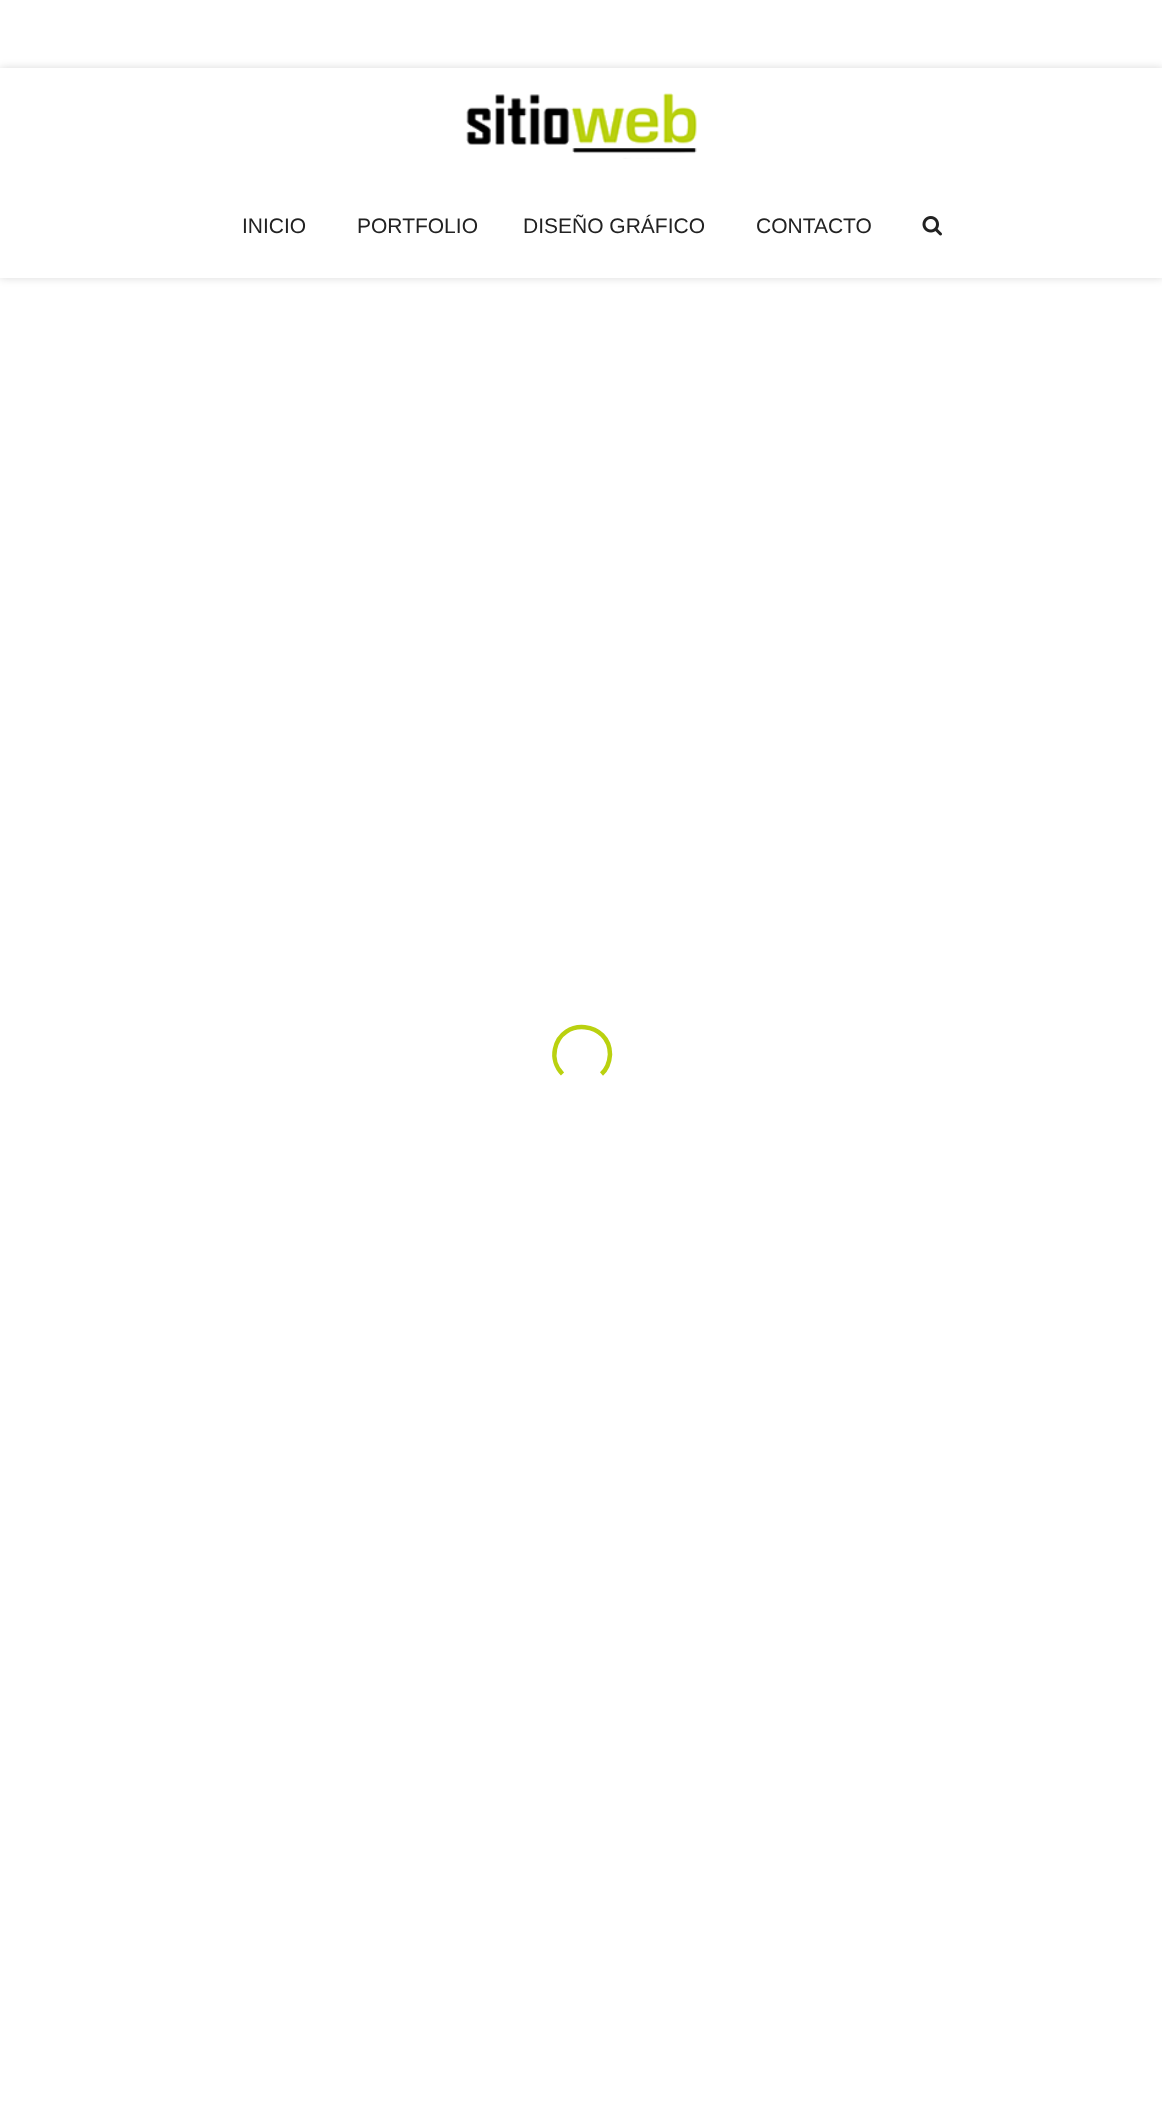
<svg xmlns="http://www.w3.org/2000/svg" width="1162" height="2109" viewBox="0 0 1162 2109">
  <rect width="100%" height="100%" fill="rgb(255,255,255)"/>
  <rect x="0" y="68" width="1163" height="210" fill="rgba(0,0,0,0.15)" filter="blur(4px)"/>
  <rect x="0" y="68" width="1162" height="210" fill="rgb(255,255,255)"/>
  <image x="466" y="93" width="231" height="66" href="pic1.png"/>
  <g font-family="Arimo" font-size="21" fill="rgb(34,34,34)">
    <text x="242" y="233">INICIO</text>
    <text x="357" y="233">PORTFOLIO</text>
    <text x="523" y="233">DISEÑO GRÁFICO</text>
    <text x="756" y="233">CONTACTO</text>
  </g>
  <image x="922" y="216" width="20" height="20" href="pic2.png"/>
  <path d="M562.5 1074C556 1067.5 553 1058 555 1049C561.5 1016.5 610 1021.5 610 1054.5C609.5 1062 607 1069 601.5 1074" fill="none" stroke="rgb(186,209,15)" stroke-width="4.5"/>
</svg>
